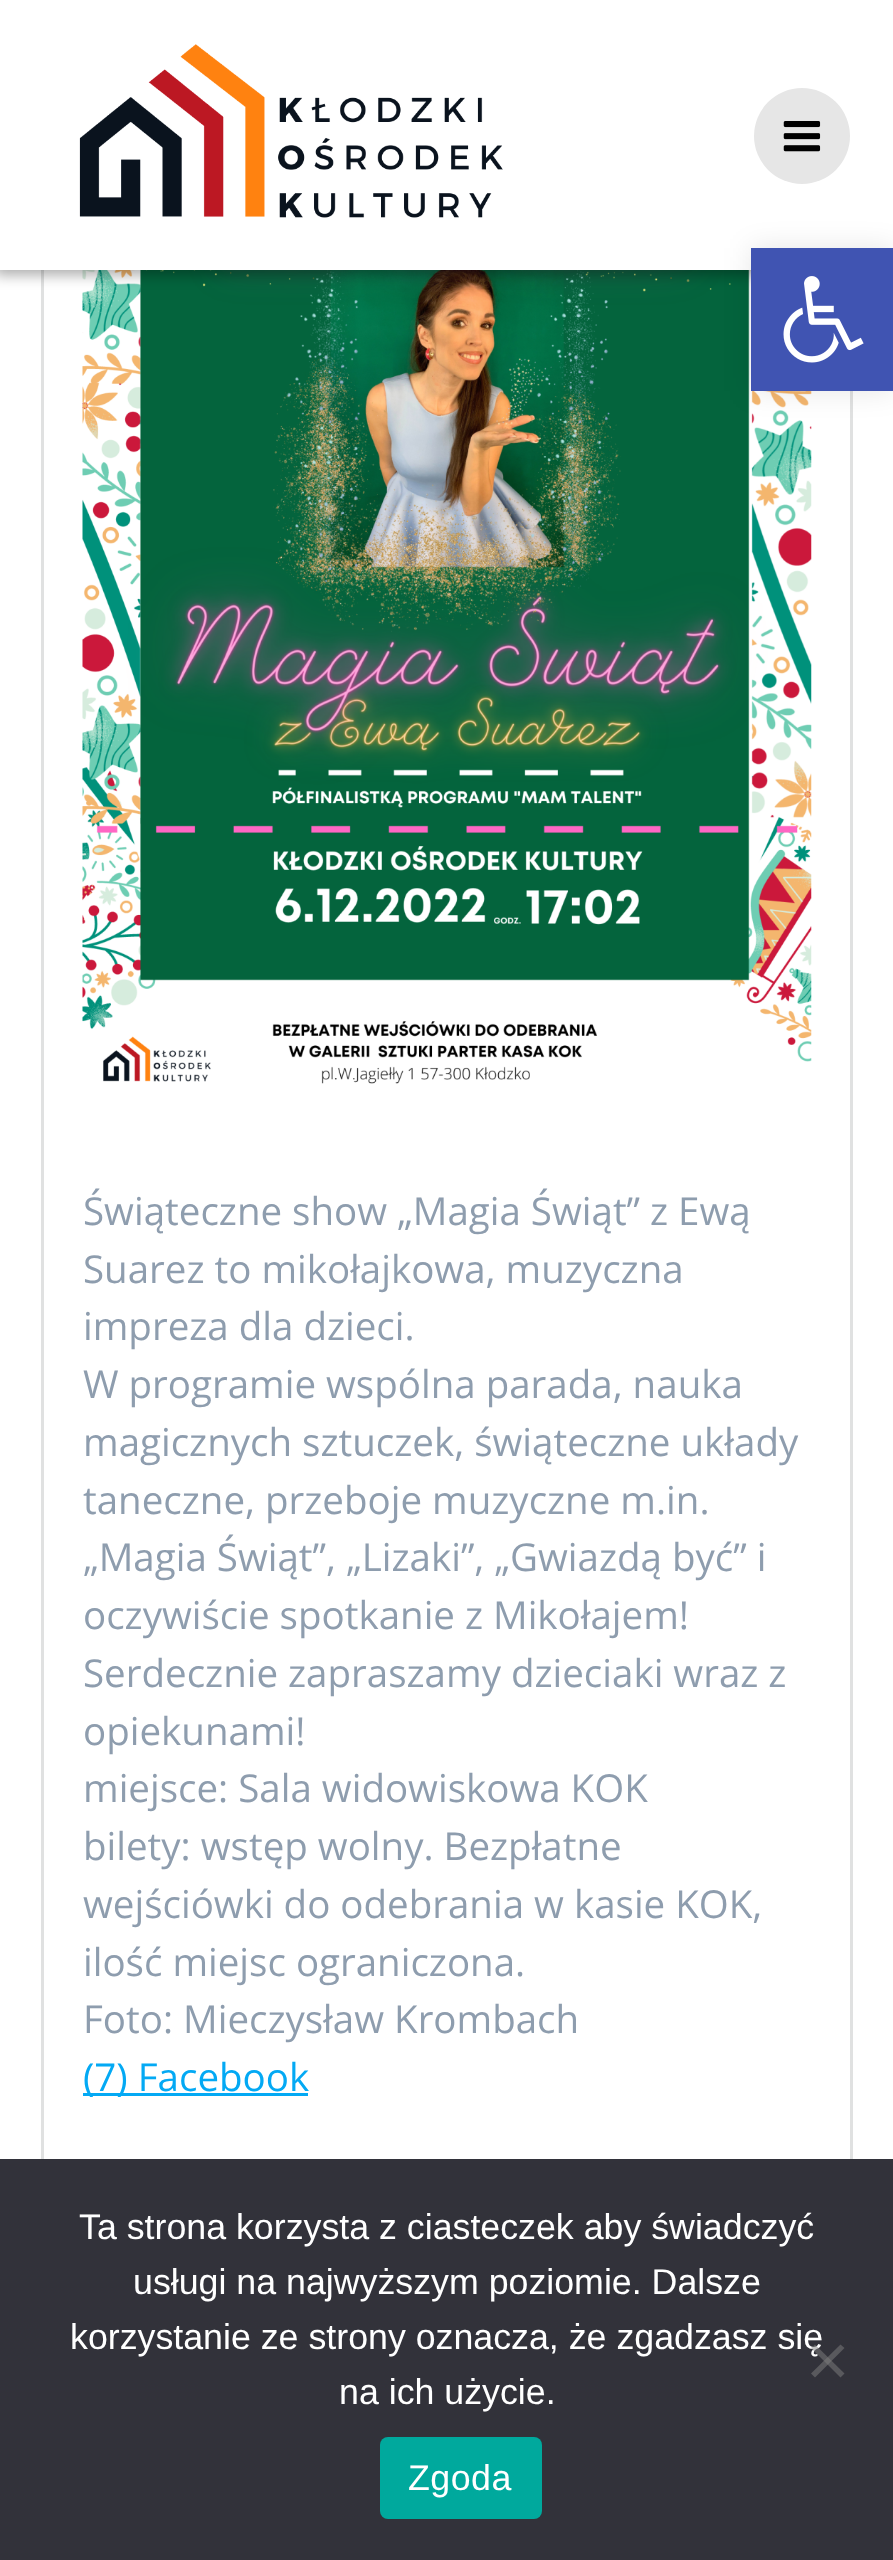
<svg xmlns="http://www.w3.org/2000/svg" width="893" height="2560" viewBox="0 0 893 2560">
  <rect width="100%" height="100%" fill="rgb(255,255,255)"/>
  <rect x="42.5" y="-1.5" width="809" height="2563" fill="none" stroke="rgb(224,225,225)" stroke-width="3"/>
  <image x="82" y="270" width="730" height="814" href="pic4.png"/>
  <rect x="-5" y="-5" width="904" height="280" fill="rgba(0,0,0,0.33)" filter="blur(7px)"/>
  <rect x="0" y="0" width="893" height="270" fill="rgb(255,255,255)"/>
  <image x="79" y="44" width="424" height="174" href="pic1.png"/>
  <circle cx="802" cy="136" r="48" fill="rgb(230,230,230)"/>
  <image x="783" y="121" width="38" height="31" href="pic2.png"/>
  <rect x="751" y="248" width="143" height="143" fill="rgba(0,0,0,0.1)" filter="blur(14px)"/>
  <rect x="751" y="248" width="142" height="143" fill="rgb(64,84,178)"/>
  <image x="783" y="276" width="81" height="87" href="pic3.png"/>
  <g font-family="Open Sans" font-size="38.5" fill="rgb(142,157,174)">
    <text>
      <tspan x="83" y="1225">Świąteczne show „Magia Świąt” z Ewą</tspan>
      <tspan x="83" y="1283">Suarez to mikołajkowa, muzyczna</tspan>
      <tspan x="83" y="1340">impreza dla dzieci.</tspan>
      <tspan x="83" y="1398">W programie wspólna parada, nauka</tspan>
      <tspan x="83" y="1456">magicznych sztuczek, świąteczne układy</tspan>
      <tspan x="83" y="1514">taneczne, przeboje muzyczne m.in.</tspan>
      <tspan x="83" y="1571">„Magia Świąt”, „Lizaki”, „Gwiazdą być” i</tspan>
      <tspan x="83" y="1629">oczywiście spotkanie z Mikołajem!</tspan>
      <tspan x="83" y="1687">Serdecznie zapraszamy dzieciaki wraz z</tspan>
      <tspan x="83" y="1745">opiekunami!</tspan>
      <tspan x="83" y="1802">miejsce: Sala widowiskowa KOK</tspan>
      <tspan x="83" y="1860">bilety: wstęp wolny. Bezpłatne</tspan>
      <tspan x="83" y="1918">wejściówki do odebrania w kasie KOK,</tspan>
      <tspan x="83" y="1976">ilość miejsc ograniczona.</tspan>
      <tspan x="83" y="2033">Foto: Mieczysław Krombach</tspan>
    </text>
  </g>
  <rect x="83" y="2093" width="225" height="3" fill="rgb(3,169,244)"/>
  <text x="83" y="2091" font-family="Open Sans" font-size="38.5" fill="rgb(3,169,244)">(7) Facebook</text>
  <rect x="0" y="2159" width="893" height="401" fill="rgb(50,50,58)"/>
  <g font-family="Liberation Sans" font-size="35.75" fill="rgb(255,255,255)">
    <text x="79" y="2239">Ta strona korzysta z ciasteczek aby świadczyć</text>
    <text x="133" y="2294">usługi na najwyższym poziomie. Dalsze</text>
    <text x="70" y="2349">korzystanie ze strony oznacza, że zgadzasz się</text>
    <text x="339" y="2404">na ich użycie.</text>
  </g>
  <path d="M840.5 2344.5L844.5 2348L815 2377.5L811 2373.5Z" fill="rgb(89,89,93)"/>
  <path d="M811 2348L815 2344.5L844.5 2373.5L840.5 2377.5Z" fill="rgba(128,128,128,0.5)"/>
  <rect x="380" y="2437" width="162" height="82" rx="8" fill="rgb(0,169,157)"/>
  <text x="408" y="2490" font-family="Liberation Sans" font-size="35.75" letter-spacing="0.5" fill="rgb(255,255,255)">Zgoda</text>
</svg>
